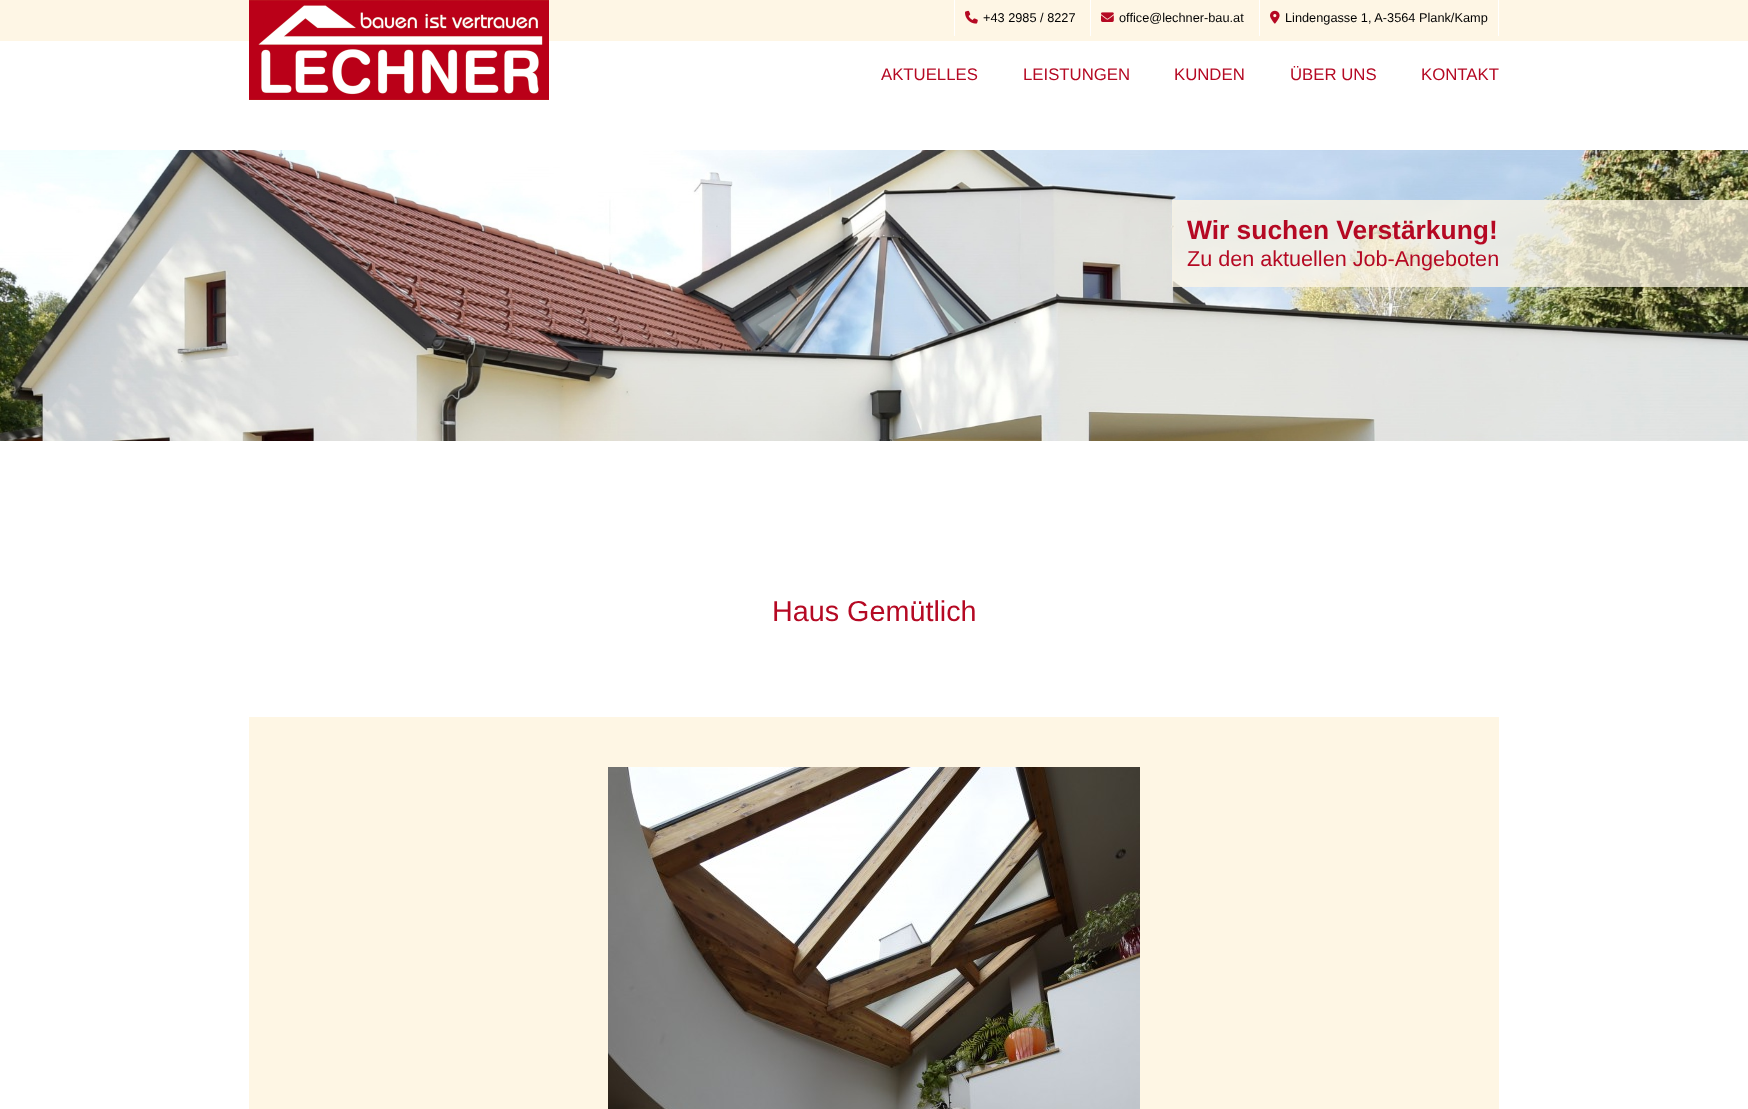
<svg xmlns="http://www.w3.org/2000/svg" width="1748" height="1109" viewBox="0 0 1748 1109">
  <rect width="100%" height="100%" fill="rgb(255,255,255)"/>
  <rect x="0" y="0" width="1748" height="41" fill="rgb(254,246,229)"/>
  <rect x="954" y="0" width="1" height="36" fill="rgb(255,255,255)"/>
  <image x="965" y="10" width="13" height="14" href="pic1.png"/>
  <text x="983" y="22" font-family="Liberation Sans" font-size="12.75" fill="rgb(0,0,0)">+43 2985 / 8227</text>
  <rect x="1090" y="0" width="1" height="36" fill="rgb(255,255,255)"/>
  <image x="1101" y="12" width="13" height="10" href="pic2.png"/>
  <text x="1119" y="22" font-family="Liberation Sans" font-size="12.75" fill="rgb(0,0,0)">office@lechner-bau.at</text>
  <rect x="1498" y="0" width="1" height="36" fill="rgb(255,255,255)"/>
  <rect x="1259" y="0" width="1" height="36" fill="rgb(255,255,255)"/>
  <image x="1270" y="10" width="10" height="14" href="pic3.png"/>
  <text x="1285" y="22" font-family="Liberation Sans" font-size="12.75" fill="rgb(0,0,0)">Lindengasse 1, A-3564 Plank/Kamp</text>
  <image x="249" y="0" width="300" height="100" href="pic4.png"/>
  <g font-family="Liberation Sans" font-size="16.75" fill="rgb(181,9,35)">
    <text x="881" y="80">AKTUELLES</text>
    <text x="1023" y="80">LEISTUNGEN</text>
    <text x="1174" y="80">KUNDEN</text>
    <text x="1290" y="80">ÜBER UNS</text>
    <text x="1421" y="80">KONTAKT</text>
  </g>
  <image x="0" y="150" width="1748" height="291" href="pic5.png"/>
  <rect x="1172" y="200" width="576" height="87" fill="rgba(254,246,228,0.75)"/>
  <text x="1187" y="239" font-family="Liberation Sans" font-size="26.4" font-weight="bold" fill="rgb(181,9,35)">Wir suchen Verstärkung!</text>
  <text x="1187" y="266" font-family="Liberation Sans" font-size="21.6" fill="rgb(181,9,35)">Zu den aktuellen Job-Angeboten</text>
  <text x="772" y="621" font-family="Liberation Sans" font-size="28.75" fill="rgb(181,9,35)">Haus Gemütlich</text>
  <rect x="249" y="717" width="1250" height="392" fill="rgb(254,246,228)"/>
  <image x="608" y="767" width="532" height="342" href="pic6.png"/>
</svg>
